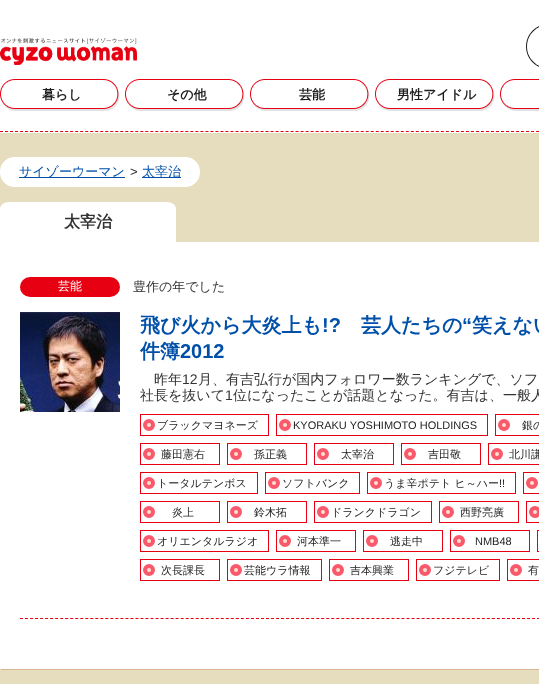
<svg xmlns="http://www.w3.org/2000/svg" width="539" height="684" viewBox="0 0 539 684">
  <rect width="100%" height="100%" fill="rgb(229,221,189)"/>
  <rect x="0" y="0" width="539" height="133" fill="rgb(255,255,255)"/>
  <path d="M0 131.5H539" fill="none" stroke="rgb(230,0,18)" stroke-dasharray="3 2.01"/>
  <image x="0" y="38" width="137" height="27" href="pic1.png"/>
  <image x="526" y="26" width="13" height="41" href="pic2.png"/>
  <image x="0" y="79" width="120" height="32" href="pic3.png"/>
  <text x="42" y="99" font-family="WenQuanYi Zen Hei" font-size="13" font-weight="bold" fill="rgb(29,29,29)">暮らし</text>
  <image x="125" y="79" width="120" height="32" href="pic3.png"/>
  <text x="167" y="99" font-family="WenQuanYi Zen Hei" font-size="13" font-weight="bold" fill="rgb(29,29,29)">その他</text>
  <image x="250" y="79" width="120" height="32" href="pic3.png"/>
  <text x="299" y="99" font-family="WenQuanYi Zen Hei" font-size="13" font-weight="bold" fill="rgb(29,29,29)">芸能</text>
  <image x="375" y="79" width="120" height="32" href="pic3.png"/>
  <text x="397" y="99" font-family="WenQuanYi Zen Hei" font-size="13" font-weight="bold" fill="rgb(29,29,29)">男性アイドル</text>
  <image x="500" y="79" width="39" height="32" href="pic4.png"/>
  <rect x="0.5" y="157.5" width="199" height="29" rx="13.5" fill="rgb(255,255,255)" stroke="rgb(255,255,255)"/>
  <rect x="19" y="177" width="106" height="1" fill="rgb(0,80,169)"/>
  <text x="19" y="176" font-family="WenQuanYi Zen Hei" font-size="13" font-weight="500" fill="rgb(0,80,169)">サイゾーウーマン</text>
  <text x="130" y="176" font-family="Liberation Sans" font-size="13" fill="rgb(51,51,51)">&gt;</text>
  <rect x="142" y="177" width="39" height="1" fill="rgb(0,80,169)"/>
  <text x="142" y="176" font-family="WenQuanYi Zen Hei" font-size="13" font-weight="500" fill="rgb(0,80,169)">太宰治</text>
  <path d="M9 202H167C172 202 176 205 176 209V242H0V209C0 205 4 202 9 202Z" fill="rgb(255,255,255)"/>
  <text x="64" y="227" font-family="WenQuanYi Zen Hei" font-size="16" font-weight="bold" fill="rgb(51,51,51)">太宰治</text>
  <rect x="1" y="243" width="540" height="427" fill="rgb(217,182,144)" filter="blur(0.5px)"/>
  <rect x="0" y="242" width="539" height="427" fill="rgb(255,255,255)"/>
  <path d="M20 618.5H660" fill="none" stroke="rgb(230,0,18)" stroke-dasharray="3 2.02"/>
  <rect x="20" y="277" width="100" height="20" rx="10" fill="rgb(230,0,18)"/>
  <text x="58" y="290" font-family="WenQuanYi Zen Hei" font-size="12" font-weight="500" fill="rgb(255,255,255)">芸能</text>
  <text x="133" y="291" font-family="WenQuanYi Zen Hei" font-size="13" font-weight="500" fill="rgb(51,51,51)">豊作の年でした</text>
  <image x="20" y="312" width="100" height="100" href="pic5.png"/>
  <text x="140" y="332" font-family="WenQuanYi Zen Hei" font-size="20" font-weight="bold" fill="rgb(0,80,169)">飛び火から大炎上も</text>
  <text x="322" y="332" font-family="Liberation Sans" font-size="20" font-weight="bold" fill="rgb(0,80,169)">!?</text>
  <text x="361" y="332" font-family="WenQuanYi Zen Hei" font-size="20" font-weight="bold" fill="rgb(0,80,169)">芸人たちの</text>
  <text x="462" y="332" font-family="Liberation Sans" font-size="20" font-weight="bold" fill="rgb(0,80,169)">“</text>
  <g font-family="WenQuanYi Zen Hei" font-size="20" font-weight="bold" fill="rgb(0,80,169)">
    <text x="472" y="332">笑えない</text>
    <text x="140" y="358">件簿</text>
  </g>
  <text x="180" y="358" font-family="Liberation Sans" font-size="20" font-weight="bold" fill="rgb(0,80,169)">2012</text>
  <text x="154" y="384" font-family="WenQuanYi Zen Hei" font-size="14" font-weight="500" fill="rgb(51,51,51)">昨年</text>
  <text x="182" y="384" font-family="Liberation Sans" font-size="14" fill="rgb(51,51,51)">12</text>
  <g font-family="WenQuanYi Zen Hei" font-size="14" font-weight="500" fill="rgb(51,51,51)">
    <text x="198" y="384">月、有吉弘行が国内フォロワー数ランキングで、ソフ</text>
    <text x="140" y="400">社長を抜いて</text>
  </g>
  <text x="225" y="400" font-family="Liberation Sans" font-size="14" fill="rgb(51,51,51)">1</text>
  <text x="233" y="400" font-family="WenQuanYi Zen Hei" font-size="14" font-weight="500" fill="rgb(51,51,51)">位になったことが話題となった。有吉は、一般人</text>
  <rect x="140.5" y="414.5" width="128" height="21" fill="none" stroke="rgb(230,0,18)"/>
  <circle cx="149" cy="425" r="4" fill="rgb(254,225,211)" stroke="rgb(250,89,108)" stroke-width="4"/>
  <text x="157" y="429" font-family="WenQuanYi Zen Hei" font-size="11" font-weight="500" fill="rgb(29,29,29)">ブラックマヨネーズ</text>
  <rect x="276.5" y="414.5" width="211" height="21" fill="none" stroke="rgb(230,0,18)"/>
  <circle cx="285" cy="425" r="4" fill="rgb(254,225,211)" stroke="rgb(250,89,108)" stroke-width="4"/>
  <text x="293" y="429" font-family="Liberation Sans" font-size="11" fill="rgb(29,29,29)">KYORAKU YOSHIMOTO HOLDINGS</text>
  <rect x="495.5" y="414.5" width="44" height="21" fill="none" stroke="rgb(230,0,18)"/>
  <circle cx="504" cy="425" r="4" fill="rgb(254,225,211)" stroke="rgb(250,89,108)" stroke-width="4"/>
  <text x="522" y="429" font-family="WenQuanYi Zen Hei" font-size="11" font-weight="500" fill="rgb(29,29,29)">銀の</text>
  <rect x="140.5" y="443.5" width="79" height="21" fill="none" stroke="rgb(230,0,18)"/>
  <circle cx="149" cy="454" r="4" fill="rgb(254,225,211)" stroke="rgb(250,89,108)" stroke-width="4"/>
  <text x="161" y="458" font-family="WenQuanYi Zen Hei" font-size="11" font-weight="500" fill="rgb(29,29,29)">藤田憲右</text>
  <rect x="227.5" y="443.5" width="79" height="21" fill="none" stroke="rgb(230,0,18)"/>
  <circle cx="236" cy="454" r="4" fill="rgb(254,225,211)" stroke="rgb(250,89,108)" stroke-width="4"/>
  <text x="254" y="458" font-family="WenQuanYi Zen Hei" font-size="11" font-weight="500" fill="rgb(29,29,29)">孫正義</text>
  <rect x="314.5" y="443.5" width="79" height="21" fill="none" stroke="rgb(230,0,18)"/>
  <circle cx="323" cy="454" r="4" fill="rgb(254,225,211)" stroke="rgb(250,89,108)" stroke-width="4"/>
  <text x="341" y="458" font-family="WenQuanYi Zen Hei" font-size="11" font-weight="500" fill="rgb(29,29,29)">太宰治</text>
  <rect x="401.5" y="443.5" width="79" height="21" fill="none" stroke="rgb(230,0,18)"/>
  <circle cx="410" cy="454" r="4" fill="rgb(254,225,211)" stroke="rgb(250,89,108)" stroke-width="4"/>
  <text x="428" y="458" font-family="WenQuanYi Zen Hei" font-size="11" font-weight="500" fill="rgb(29,29,29)">吉田敬</text>
  <rect x="488.5" y="443.5" width="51" height="21" fill="none" stroke="rgb(230,0,18)"/>
  <circle cx="497" cy="454" r="4" fill="rgb(254,225,211)" stroke="rgb(250,89,108)" stroke-width="4"/>
  <text x="509" y="458" font-family="WenQuanYi Zen Hei" font-size="11" font-weight="500" fill="rgb(29,29,29)">北川謙</text>
  <rect x="140.5" y="472.5" width="117" height="21" fill="none" stroke="rgb(230,0,18)"/>
  <circle cx="149" cy="483" r="4" fill="rgb(254,225,211)" stroke="rgb(250,89,108)" stroke-width="4"/>
  <text x="157" y="487" font-family="WenQuanYi Zen Hei" font-size="11" font-weight="500" fill="rgb(29,29,29)">トータルテンボス</text>
  <rect x="265.5" y="472.5" width="94" height="21" fill="none" stroke="rgb(230,0,18)"/>
  <circle cx="274" cy="483" r="4" fill="rgb(254,225,211)" stroke="rgb(250,89,108)" stroke-width="4"/>
  <text x="282" y="487" font-family="WenQuanYi Zen Hei" font-size="11" font-weight="500" fill="rgb(29,29,29)">ソフトバンク</text>
  <rect x="367.5" y="472.5" width="148" height="21" fill="none" stroke="rgb(230,0,18)"/>
  <circle cx="376" cy="483" r="4" fill="rgb(254,225,211)" stroke="rgb(250,89,108)" stroke-width="4"/>
  <text x="384" y="487" font-family="WenQuanYi Zen Hei" font-size="11" font-weight="500" fill="rgb(29,29,29)">うま辛ポテト ヒ～ハー</text>
  <text x="499" y="487" font-family="Liberation Sans" font-size="11" fill="rgb(29,29,29)">!!</text>
  <rect x="523.5" y="472.5" width="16" height="21" fill="none" stroke="rgb(230,0,18)"/>
  <circle cx="532" cy="483" r="4" fill="rgb(254,225,211)" stroke="rgb(250,89,108)" stroke-width="4"/>
  <rect x="140.5" y="501.5" width="79" height="21" fill="none" stroke="rgb(230,0,18)"/>
  <circle cx="149" cy="512" r="4" fill="rgb(254,225,211)" stroke="rgb(250,89,108)" stroke-width="4"/>
  <text x="172" y="516" font-family="WenQuanYi Zen Hei" font-size="11" font-weight="500" fill="rgb(29,29,29)">炎上</text>
  <rect x="227.5" y="501.5" width="79" height="21" fill="none" stroke="rgb(230,0,18)"/>
  <circle cx="236" cy="512" r="4" fill="rgb(254,225,211)" stroke="rgb(250,89,108)" stroke-width="4"/>
  <text x="254" y="516" font-family="WenQuanYi Zen Hei" font-size="11" font-weight="500" fill="rgb(29,29,29)">鈴木拓</text>
  <rect x="314.5" y="501.5" width="117" height="21" fill="none" stroke="rgb(230,0,18)"/>
  <circle cx="323" cy="512" r="4" fill="rgb(254,225,211)" stroke="rgb(250,89,108)" stroke-width="4"/>
  <text x="331" y="516" font-family="WenQuanYi Zen Hei" font-size="11" font-weight="500" fill="rgb(29,29,29)">ドランクドラゴン</text>
  <rect x="439.5" y="501.5" width="79" height="21" fill="none" stroke="rgb(230,0,18)"/>
  <circle cx="448" cy="512" r="4" fill="rgb(254,225,211)" stroke="rgb(250,89,108)" stroke-width="4"/>
  <text x="460" y="516" font-family="WenQuanYi Zen Hei" font-size="11" font-weight="500" fill="rgb(29,29,29)">西野亮廣</text>
  <rect x="526.5" y="501.5" width="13" height="21" fill="none" stroke="rgb(230,0,18)"/>
  <circle cx="535" cy="512" r="4" fill="rgb(254,225,211)" stroke="rgb(250,89,108)" stroke-width="4"/>
  <rect x="140.5" y="530.5" width="128" height="21" fill="none" stroke="rgb(230,0,18)"/>
  <circle cx="149" cy="541" r="4" fill="rgb(254,225,211)" stroke="rgb(250,89,108)" stroke-width="4"/>
  <text x="157" y="545" font-family="WenQuanYi Zen Hei" font-size="11" font-weight="500" fill="rgb(29,29,29)">オリエンタルラジオ</text>
  <rect x="276.5" y="530.5" width="79" height="21" fill="none" stroke="rgb(230,0,18)"/>
  <circle cx="285" cy="541" r="4" fill="rgb(254,225,211)" stroke="rgb(250,89,108)" stroke-width="4"/>
  <text x="297" y="545" font-family="WenQuanYi Zen Hei" font-size="11" font-weight="500" fill="rgb(29,29,29)">河本準一</text>
  <rect x="363.5" y="530.5" width="79" height="21" fill="none" stroke="rgb(230,0,18)"/>
  <circle cx="372" cy="541" r="4" fill="rgb(254,225,211)" stroke="rgb(250,89,108)" stroke-width="4"/>
  <text x="390" y="545" font-family="WenQuanYi Zen Hei" font-size="11" font-weight="500" fill="rgb(29,29,29)">逃走中</text>
  <rect x="450.5" y="530.5" width="79" height="21" fill="none" stroke="rgb(230,0,18)"/>
  <circle cx="459" cy="541" r="4" fill="rgb(254,225,211)" stroke="rgb(250,89,108)" stroke-width="4"/>
  <text x="475" y="545" font-family="Liberation Sans" font-size="11" fill="rgb(29,29,29)">NMB48</text>
  <rect x="537.5" y="530.5" width="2" height="21" fill="none" stroke="rgb(230,0,18)"/>
  <rect x="140.5" y="559.5" width="79" height="21" fill="none" stroke="rgb(230,0,18)"/>
  <circle cx="149" cy="570" r="4" fill="rgb(254,225,211)" stroke="rgb(250,89,108)" stroke-width="4"/>
  <text x="161" y="574" font-family="WenQuanYi Zen Hei" font-size="11" font-weight="500" fill="rgb(29,29,29)">次長課長</text>
  <rect x="227.5" y="559.5" width="94" height="21" fill="none" stroke="rgb(230,0,18)"/>
  <circle cx="236" cy="570" r="4" fill="rgb(254,225,211)" stroke="rgb(250,89,108)" stroke-width="4"/>
  <text x="244" y="574" font-family="WenQuanYi Zen Hei" font-size="11" font-weight="500" fill="rgb(29,29,29)">芸能ウラ情報</text>
  <rect x="329.5" y="559.5" width="79" height="21" fill="none" stroke="rgb(230,0,18)"/>
  <circle cx="338" cy="570" r="4" fill="rgb(254,225,211)" stroke="rgb(250,89,108)" stroke-width="4"/>
  <text x="350" y="574" font-family="WenQuanYi Zen Hei" font-size="11" font-weight="500" fill="rgb(29,29,29)">吉本興業</text>
  <rect x="416.5" y="559.5" width="83" height="21" fill="none" stroke="rgb(230,0,18)"/>
  <circle cx="425" cy="570" r="4" fill="rgb(254,225,211)" stroke="rgb(250,89,108)" stroke-width="4"/>
  <text x="433" y="574" font-family="WenQuanYi Zen Hei" font-size="11" font-weight="500" fill="rgb(29,29,29)">フジテレビ</text>
  <rect x="507.5" y="559.5" width="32" height="21" fill="none" stroke="rgb(230,0,18)"/>
  <circle cx="516" cy="570" r="4" fill="rgb(254,225,211)" stroke="rgb(250,89,108)" stroke-width="4"/>
  <text x="528" y="574" font-family="WenQuanYi Zen Hei" font-size="11" font-weight="500" fill="rgb(29,29,29)">有</text>
</svg>
